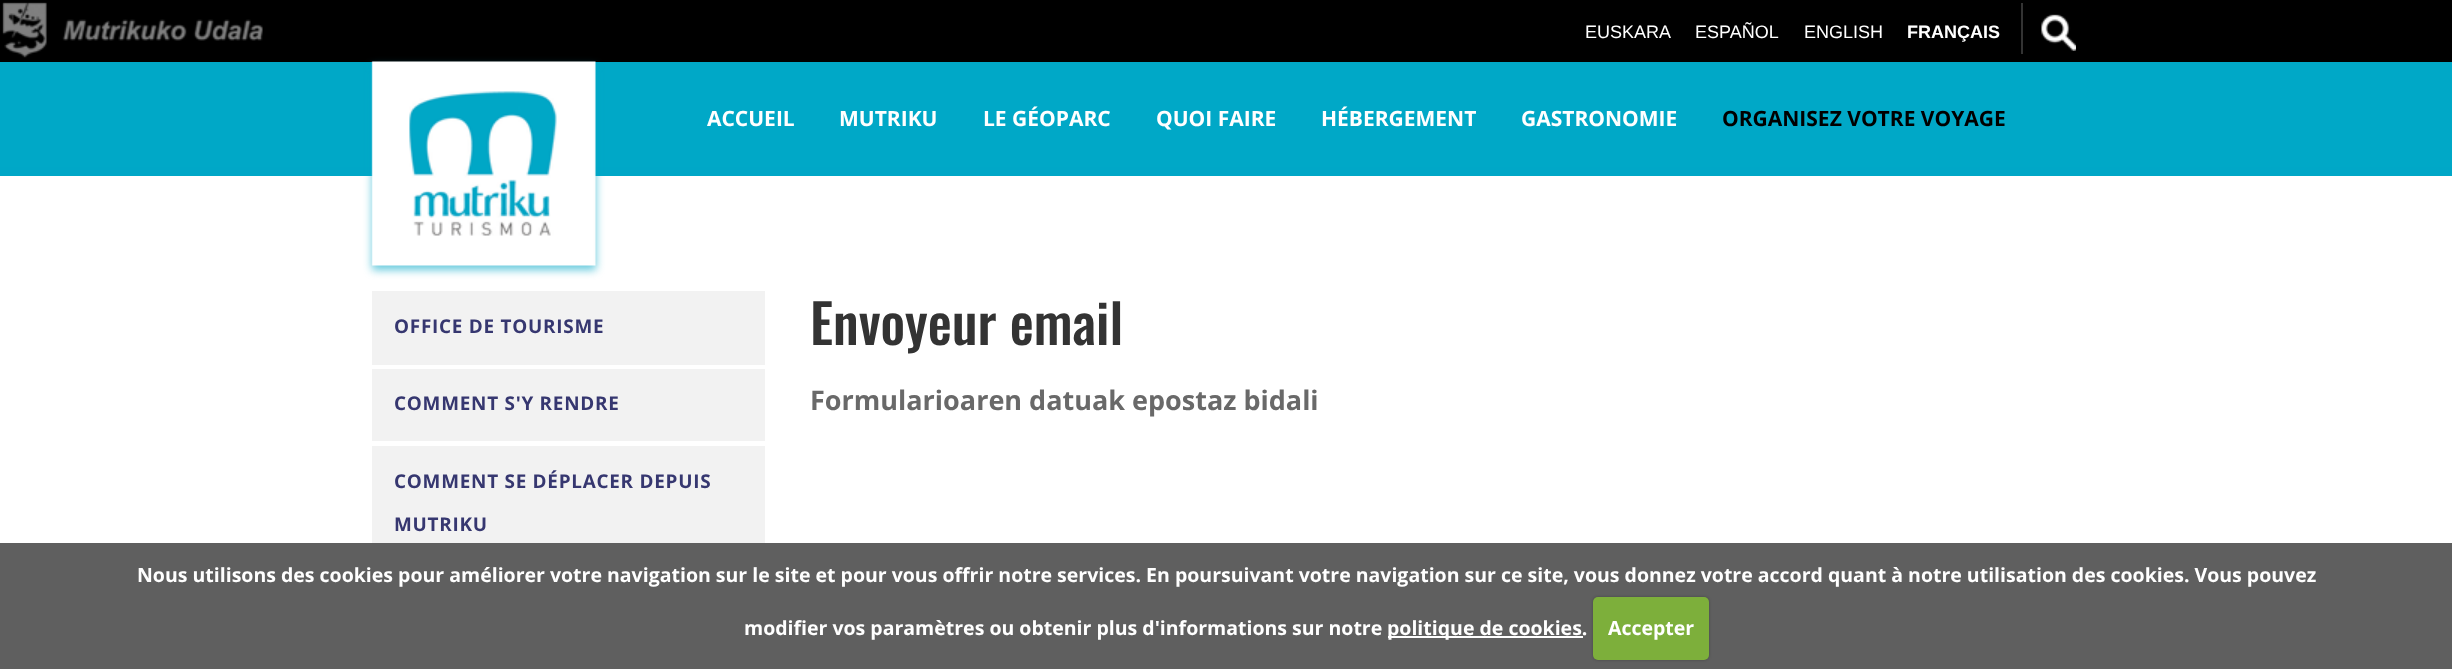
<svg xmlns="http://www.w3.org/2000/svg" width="2452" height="669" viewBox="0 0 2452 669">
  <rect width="100%" height="100%" fill="rgb(255,255,255)"/>
  <rect x="0" y="167" width="2452" height="9" fill="rgb(0,167,199)"/>
  <rect x="0" y="0" width="2452" height="62" fill="rgb(0,0,0)"/>
  <image x="2" y="2" width="261" height="56" href="pic1.png"/>
  <rect x="2021" y="3" width="2" height="51" fill="rgb(51,51,51)"/>
  <g font-family="Liberation Sans" font-size="18" fill="rgb(255,255,255)">
    <text x="1585" y="38">EUSKARA</text>
    <text x="1695" y="38">ESPAÑOL</text>
    <text x="1804" y="38">ENGLISH</text>
  </g>
  <text x="1907" y="38" font-family="Liberation Sans" font-size="18" font-weight="bold" fill="rgb(255,255,255)">FRANÇAIS</text>
  <image x="2041" y="14" width="35" height="37" href="pic2.png"/>
  <rect x="0" y="62" width="2452" height="105" fill="rgb(0,168,199)"/>
  <rect x="372" y="66" width="224" height="204" fill="rgba(0,167,199,0.6)" filter="blur(4px)"/>
  <image x="371" y="61" width="225" height="205" href="pic3.png"/>
  <g font-family="Open Sans" font-size="21" font-weight="bold" fill="rgb(255,255,255)">
    <text x="707" y="126">ACCUEIL</text>
    <text x="839" y="126">MUTRIKU</text>
    <text x="983" y="126">LE GÉOPARC</text>
    <text x="1156" y="126">QUOI FAIRE</text>
    <text x="1321" y="126">HÉBERGEMENT</text>
    <text x="1521" y="126">GASTRONOMIE</text>
  </g>
  <text x="1722" y="126" font-family="Open Sans" font-size="21" font-weight="bold" fill="rgb(0,0,0)">ORGANISEZ VOTRE VOYAGE</text>
  <rect x="372" y="291" width="393" height="74" fill="rgb(242,242,242)"/>
  <text x="394" y="333" font-family="Open Sans" font-size="18.9" font-weight="bold" letter-spacing="0.75" fill="rgb(54,55,112)">OFFICE DE TOURISME</text>
  <rect x="372" y="369" width="393" height="72" fill="rgb(242,242,242)"/>
  <text x="394" y="410" font-family="Open Sans" font-size="18.9" font-weight="bold" letter-spacing="0.75" fill="rgb(54,55,112)">COMMENT S'Y RENDRE</text>
  <rect x="372" y="446" width="393" height="117" fill="rgb(242,242,242)"/>
  <g font-family="Open Sans" font-size="18.9" font-weight="bold" letter-spacing="0.75" fill="rgb(54,55,112)">
    <text x="394" y="488">COMMENT SE DÉPLACER DEPUIS</text>
    <text x="394" y="531">MUTRIKU</text>
  </g>
  <rect x="372" y="567" width="393" height="74" fill="rgb(242,242,242)"/>
  <rect x="372" y="645" width="393" height="24" fill="rgb(242,242,242)"/>
  <text x="810" y="345" font-family="Oswald" font-size="54" font-weight="500" fill="rgb(51,51,51)">Envoyeur email</text>
  <text x="810" y="410" font-family="Open Sans" font-size="27" font-weight="bold" fill="rgb(105,105,105)">Formularioaren datuak epostaz bidali</text>
  <rect x="0" y="543" width="2452" height="126" fill="rgba(86,86,86,0.95)"/>
  <g font-family="Open Sans" font-size="19.5" font-weight="bold" fill="rgb(255,255,255)">
    <text x="137" y="582">Nous utilisons des cookies pour améliorer votre navigation sur le site et pour vous offrir notre services. En poursuivant votre navigation sur ce site, vous donnez votre accord quant à notre utilisation des cookies. Vous pouvez</text>
    <text x="744" y="635">modifier vos paramètres ou obtenir plus d'informations sur notre</text>
  </g>
  <rect x="1388" y="636" width="195" height="2" fill="rgb(255,255,255)"/>
  <text x="1387" y="635" font-family="Open Sans" font-size="19.5" font-weight="bold" fill="rgb(255,255,255)">politique de cookies.</text>
  <rect x="1593" y="597" width="116" height="63" rx="5" fill="rgba(0,0,0,0.25)" filter="blur(1.5px)"/>
  <rect x="1593" y="597" width="116" height="63" rx="5" fill="rgb(125,175,59)"/>
  <text x="1608" y="635" font-family="Open Sans" font-size="19.5" font-weight="bold" fill="rgb(255,255,255)">Accepter</text>
</svg>
